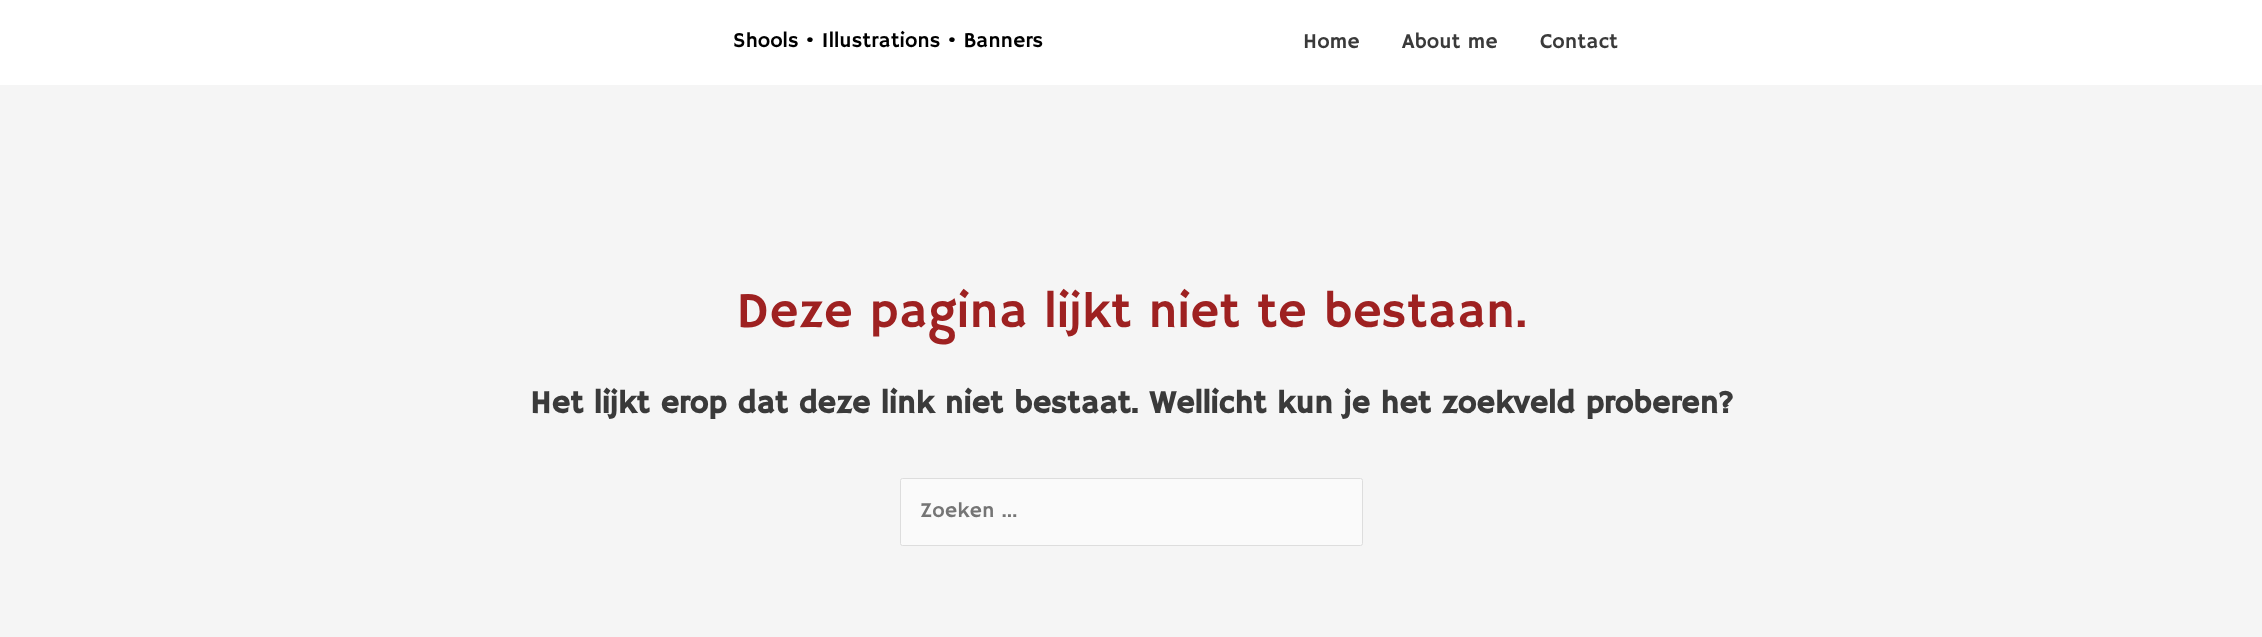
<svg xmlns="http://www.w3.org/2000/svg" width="2262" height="637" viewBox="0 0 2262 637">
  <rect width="100%" height="100%" fill="rgb(245,245,245)"/>
  <rect x="0" y="0" width="2262" height="85" fill="rgb(255,255,255)"/>
  <text x="733" y="47" font-family="Hammersmith One" font-size="21.25" fill="rgb(0,0,0)">Shools • Illustrations • Banners</text>
  <g font-family="Hammersmith One" font-size="21.25" fill="rgb(58,58,58)">
    <text x="1303" y="48">Home</text>
    <text x="1402" y="48">About me</text>
    <text x="1540" y="48">Contact</text>
  </g>
  <text x="736" y="327" font-family="Hammersmith One" font-size="50" fill="rgb(158,33,33)">Deze pagina lijkt niet te bestaan.</text>
  <text x="530" y="413" font-family="Hammersmith One" font-size="31.9" font-weight="bold" fill="rgb(58,58,58)">Het lijkt erop dat deze link niet bestaat. Wellicht kun je het zoekveld proberen?</text>
  <rect x="900.5" y="478.5" width="462" height="67" rx="2" fill="rgb(250,250,250)" stroke="rgb(221,221,221)"/>
  <text x="920" y="517" font-family="Hammersmith One" font-size="21.25" fill="rgb(117,117,117)">Zoeken …</text>
</svg>
